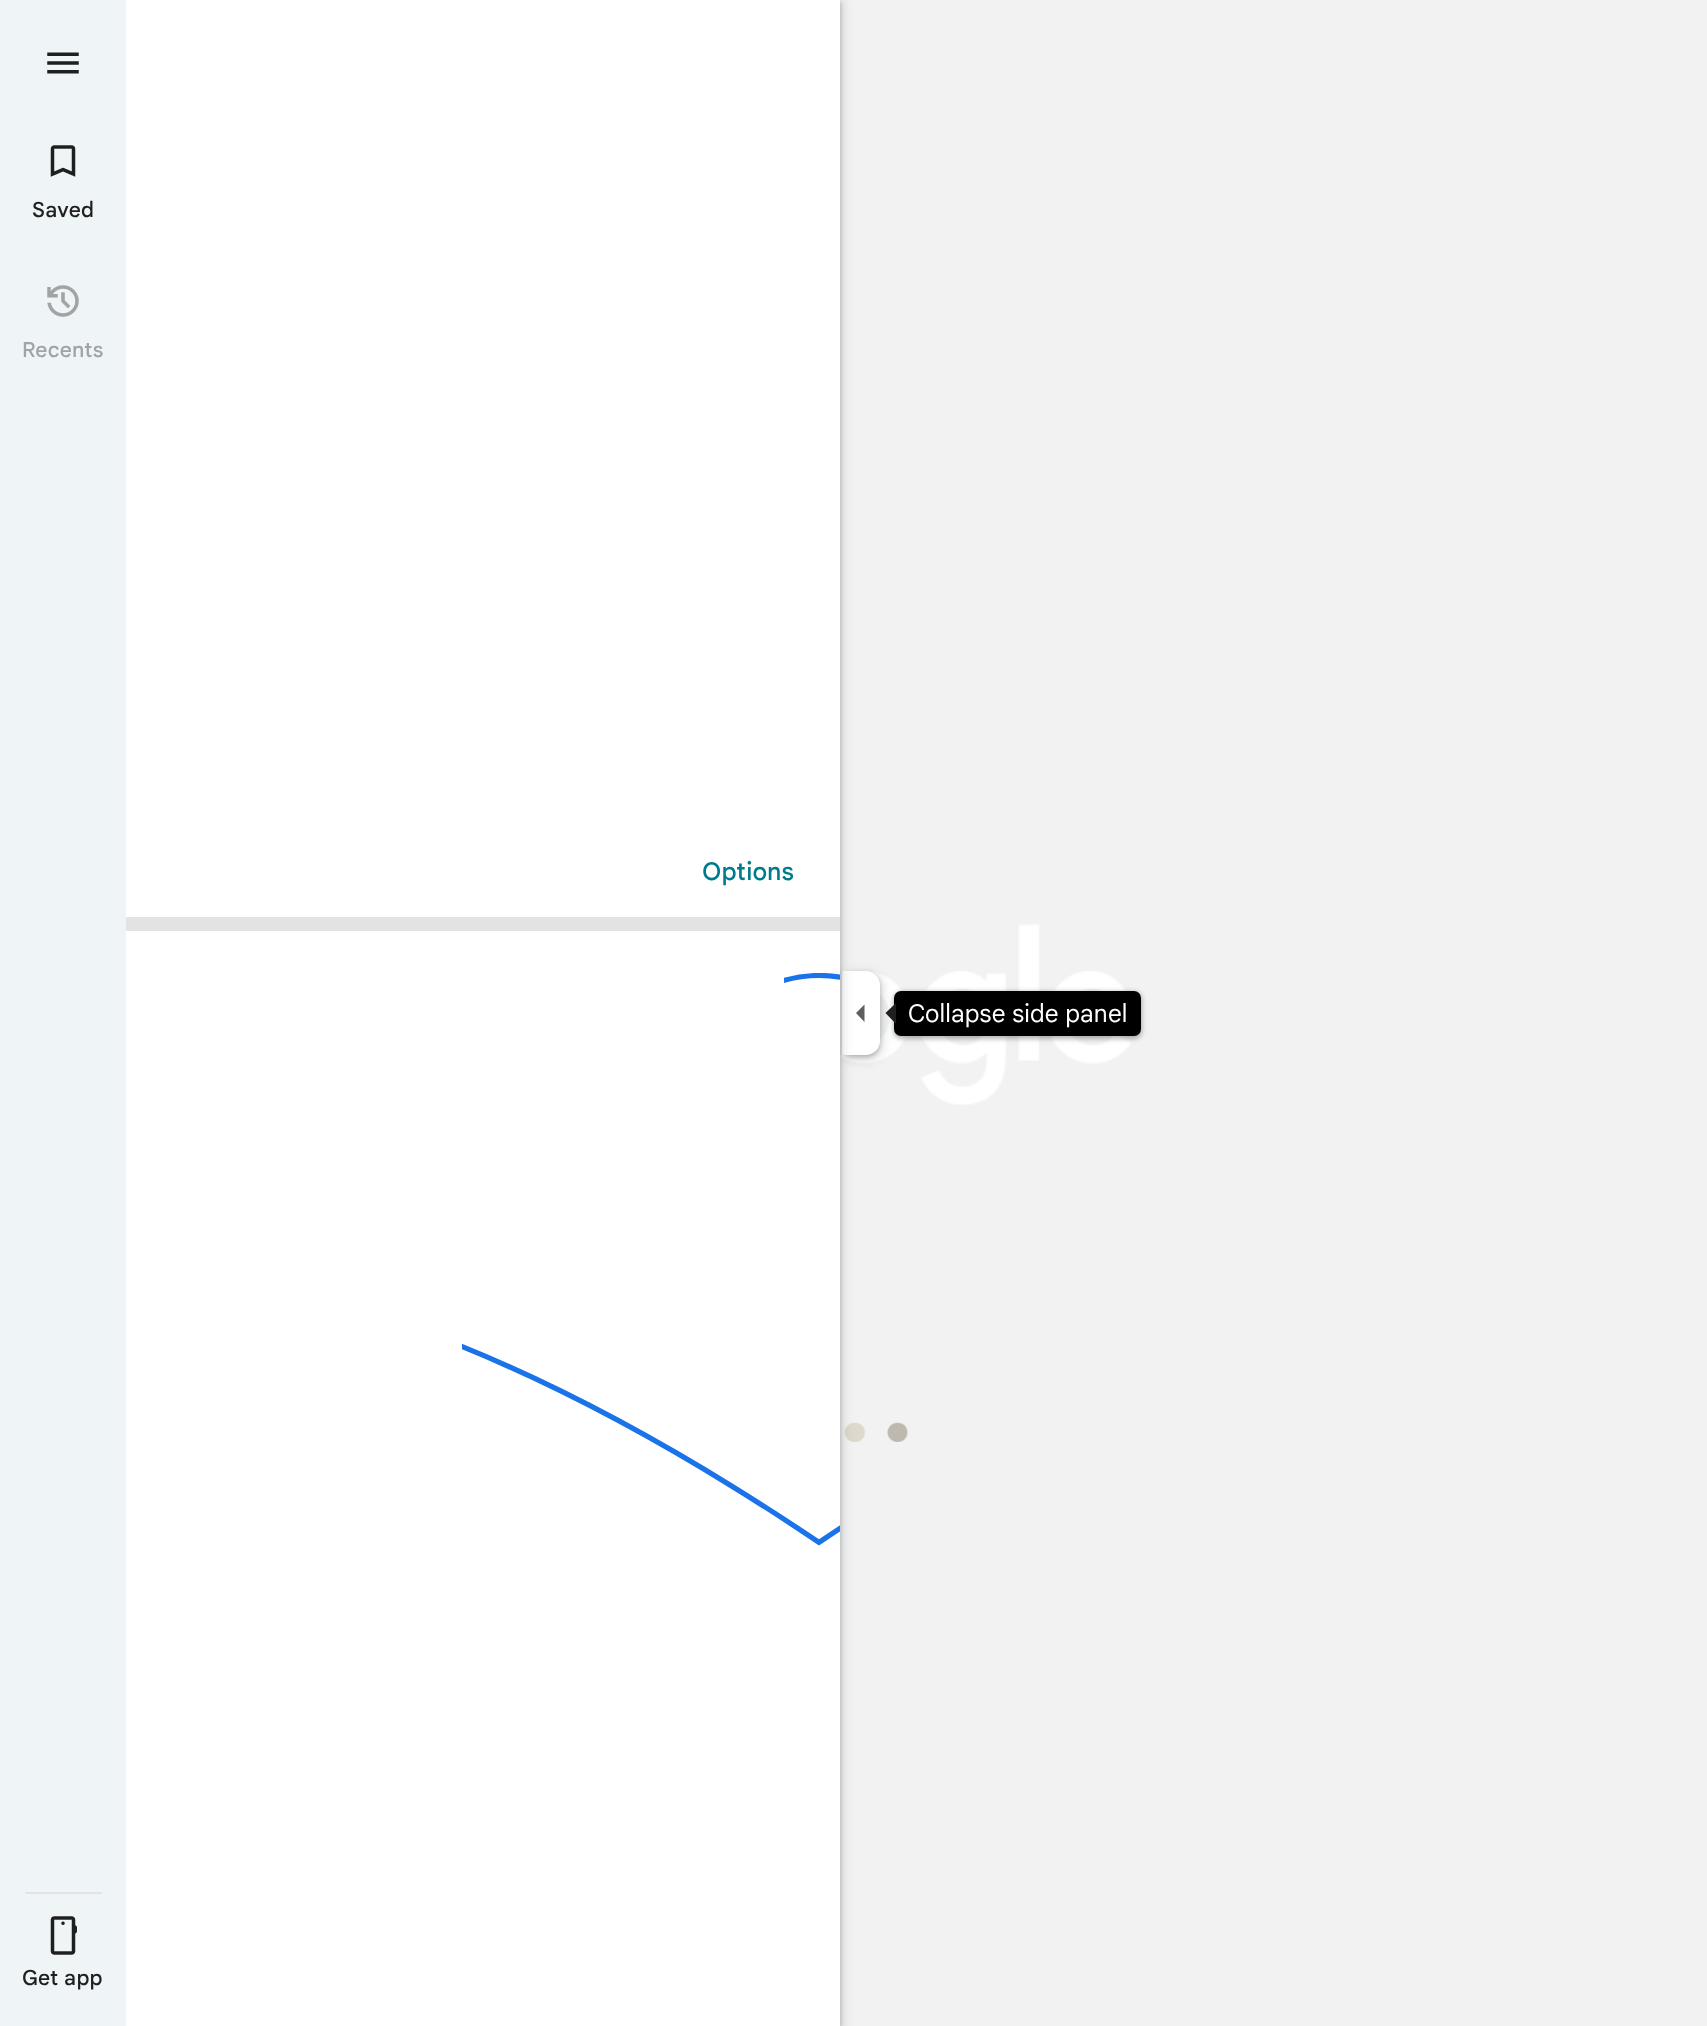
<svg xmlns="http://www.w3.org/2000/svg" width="1707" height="2026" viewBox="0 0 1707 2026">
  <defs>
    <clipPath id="clip1"><rect x="784" y="973" width="56" height="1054"/></clipPath>
    <clipPath id="clip2"><rect x="462" y="973" width="357" height="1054"/></clipPath>
    <clipPath id="clip3"><rect x="819" y="973" width="21" height="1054"/></clipPath>
  </defs>
  <rect width="100%" height="100%" fill="rgb(242,242,242)"/>
  <image x="840" y="923" width="292" height="182" href="pic5.png"/>
  <rect x="837" y="971" width="47" height="91" rx="18" fill="rgba(60,64,67,0.15)" filter="blur(5px)"/>
  <rect x="840" y="973" width="40" height="84" rx="14" fill="rgba(60,64,67,0.3)" filter="blur(2px)"/>
  <path d="M840 971H866C873.5 971 880 977.5 880 985V1041C880 1048.5 873.5 1055 866 1055H840Z" fill="rgb(255,255,255)"/>
  <rect x="840" y="971" width="2" height="84" fill="rgb(227,227,227)"/>
  <path d="M864.5 1022L856 1013L864.5 1004.5Z" fill="rgb(94,94,94)"/>
  <image x="844" y="1422" width="64" height="20" href="pic6.png"/>
  <rect x="123" y="0" width="721" height="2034" fill="rgba(60,64,67,0.15)" filter="blur(5px)"/>
  <rect x="126" y="2" width="714" height="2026" fill="rgba(60,64,67,0.3)" filter="blur(2px)"/>
  <rect x="0" y="0" width="126" height="2026" fill="rgb(239,245,246)"/>
  <image x="47" y="52" width="32" height="22" href="pic1.png"/>
  <image x="50" y="145" width="26" height="32" href="pic2.png"/>
  <text x="32" y="217" font-family="Google Sans" font-size="21" font-weight="500" letter-spacing="0.25" fill="rgb(31,31,31)">Saved</text>
  <image x="47" y="285" width="32" height="32" href="pic3.png"/>
  <text x="22" y="357" font-family="Google Sans" font-size="21" font-weight="500" letter-spacing="0.25" fill="rgb(160,164,164)">Recents</text>
  <rect x="25" y="1892" width="77" height="2" fill="rgb(227,227,227)"/>
  <image x="50" y="1916" width="27" height="39" href="pic4.png"/>
  <text x="22" y="1985" font-family="Google Sans" font-size="21" font-weight="500" letter-spacing="0.25" fill="rgb(31,31,31)">Get app</text>
  <rect x="126" y="0" width="714" height="2026" fill="rgb(255,255,255)"/>
  <rect x="126" y="917" width="714" height="14" fill="rgb(227,227,227)"/>
  <text x="702" y="880" font-family="Google Sans" font-size="24.5" font-weight="500" letter-spacing="0.2" fill="rgb(0,123,139)">Options</text>
  <g clip-path="url(#clip1)">
    <path d="M568.5 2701C502 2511.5 464.5 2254.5 464.5 1986.5C464.5 1718 502 1461 568.5 1271.5C635 1082 725 975.5 819 975.5C913 975.5 1003 1082 1069.5 1271.5C1136 1461 1173.5 1718 1173.5 1986C1173.5 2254.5 1136 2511.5 1069.5 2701" fill="none" stroke="rgb(26,115,232)" stroke-width="5.2"/>
  </g>
  <g clip-path="url(#clip2)">
    <path d="M432.5 1335C620.5 1406 841.5 1542.5 1047 1715C1252 1887 1425 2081 1527.5 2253.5C1630 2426.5 1653.5 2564 1593 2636C1533 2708 1393.5 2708.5 1205.5 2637.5" fill="none" stroke="rgb(26,115,232)" stroke-width="5.2"/>
  </g>
  <g clip-path="url(#clip3)">
    <path d="M432.5 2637.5C244.5 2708.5 105 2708 45 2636C-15.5 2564 8 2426.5 110.5 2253.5C213 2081 386 1887 591 1715C796.5 1542.5 1017.5 1406 1205.5 1335" fill="none" stroke="rgb(26,115,232)" stroke-width="5.2"/>
  </g>
  <rect x="893" y="991" width="250" height="49" rx="9" fill="rgba(60,64,67,0.15)" filter="blur(2.5px)"/>
  <rect x="894" y="992" width="247" height="46" rx="7" fill="rgba(60,64,67,0.3)" filter="blur(2px)"/>
  <rect x="894" y="991" width="247" height="45" rx="7" fill="rgb(0,0,0)"/>
  <path d="M896 1003V1024L885.5 1013Z" fill="rgb(31,31,31)"/>
  <text x="908" y="1022" font-family="Google Sans" font-size="24.5" letter-spacing="0.2" fill="rgb(255,255,255)">Collapse side panel</text>
</svg>
